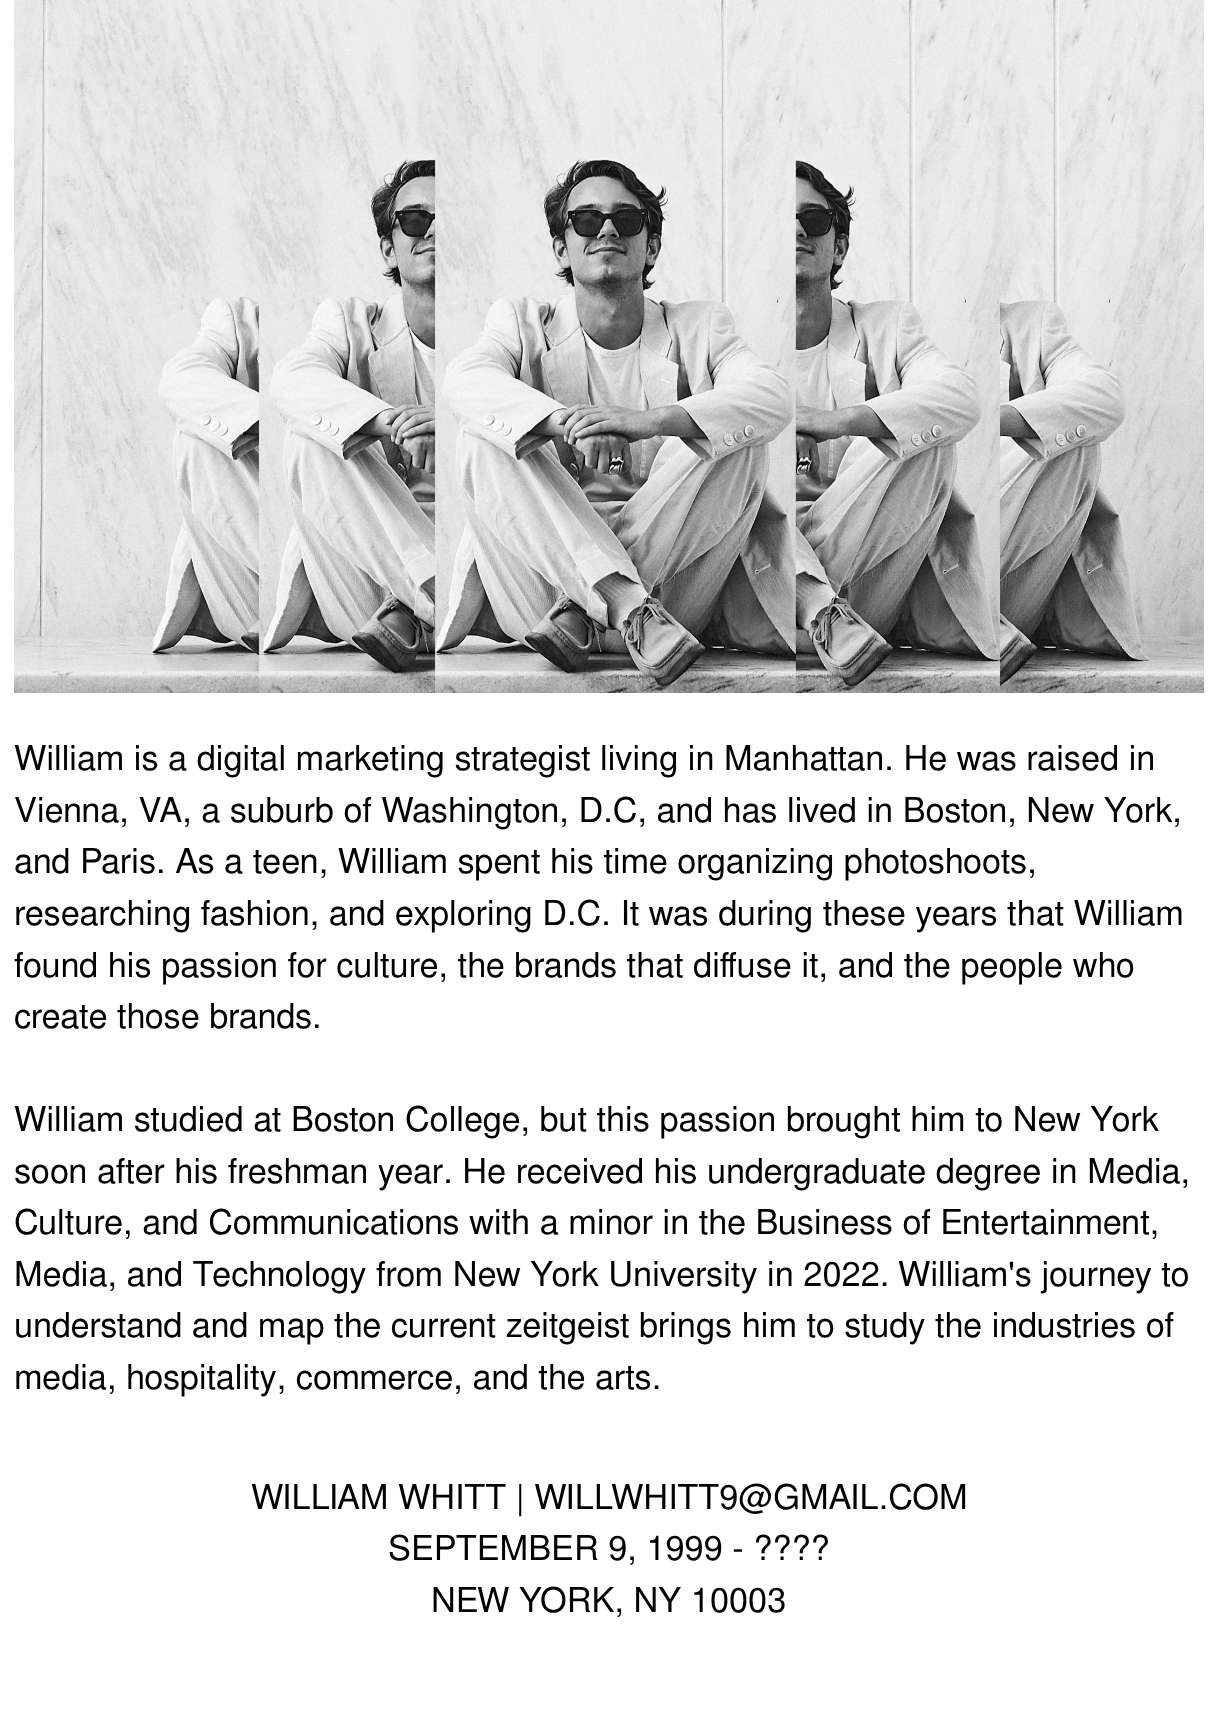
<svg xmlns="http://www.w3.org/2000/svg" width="1218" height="1716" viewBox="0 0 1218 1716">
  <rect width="100%" height="100%" fill="rgb(255,255,255)"/>
  <image x="14" y="0" width="1190" height="693" href="pic1.png"/>
  <g font-family="FreeSans" font-size="34.35" fill="rgb(0,0,0)">
    <text>
      <tspan x="14" y="770">William is a digital marketing strategist living in Manhattan. He was raised in</tspan>
      <tspan x="14" y="822">Vienna, VA, a suburb of Washington, D.C, and has lived in Boston, New York,</tspan>
      <tspan x="14" y="873">and Paris. As a teen, William spent his time organizing photoshoots,</tspan>
      <tspan x="14" y="925">researching fashion, and exploring D.C. It was during these years that William</tspan>
      <tspan x="14" y="977">found his passion for culture, the brands that diffuse it, and the people who</tspan>
      <tspan x="14" y="1028">create those brands.</tspan>
    </text>
    <text>
      <tspan x="14" y="1131">William studied at Boston College, but this passion brought him to New York</tspan>
      <tspan x="14" y="1183">soon after his freshman year. He received his undergraduate degree in Media,</tspan>
      <tspan x="14" y="1234">Culture, and Communications with a minor in the Business of Entertainment,</tspan>
      <tspan x="14" y="1286">Media, and Technology from New York University in 2022.</tspan>
    </text>
    <text x="898" y="1286">William's journey to</text>
    <text>
      <tspan x="14" y="1337">understand and map the current zeitgeist brings him to study the industries of</tspan>
      <tspan x="14" y="1389">media, hospitality, commerce, and the arts.</tspan>
    </text>
    <text x="251" y="1509">WILLIAM WHITT | WILLWHITT9@GMAIL.COM</text>
    <text x="388" y="1560">SEPTEMBER 9, 1999 - ????</text>
    <text x="431" y="1612">NEW YORK, NY 10003</text>
  </g>
</svg>
